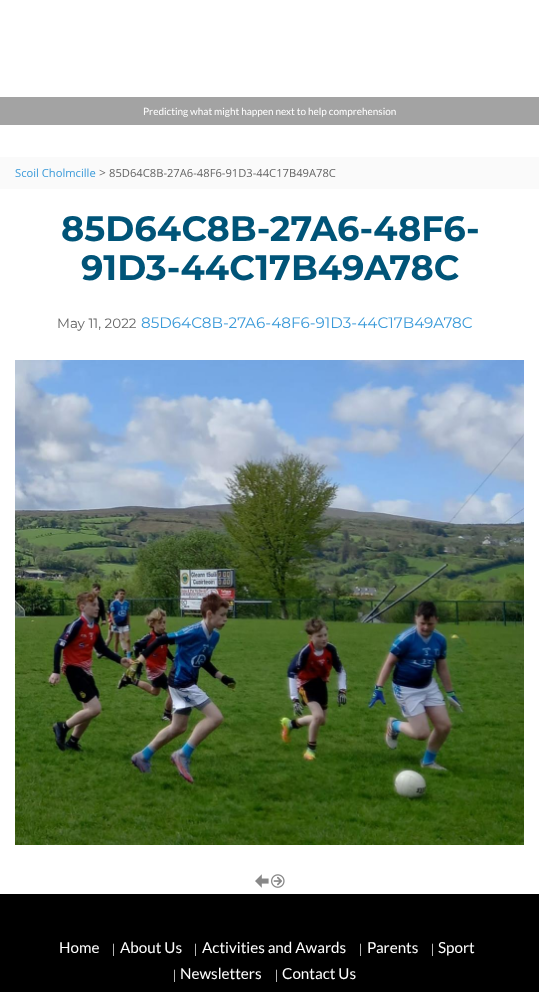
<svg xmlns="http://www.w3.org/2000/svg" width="539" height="992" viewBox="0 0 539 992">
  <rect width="100%" height="100%" fill="rgb(255,255,255)"/>
  <rect x="0" y="97" width="539" height="28" fill="rgb(163,163,163)"/>
  <text x="143" y="115" font-family="Lato" font-size="10" fill="rgb(255,255,255)">Predicting what might happen next to help comprehension</text>
  <rect x="0" y="157" width="539" height="32" fill="rgb(250,250,250)"/>
  <text x="15" y="177" font-family="Open Sans" font-size="11.2" fill="rgb(58,154,217)">Scoil Cholmcille</text>
  <text x="99" y="177" font-family="Open Sans" font-size="12" fill="rgb(101,101,101)">&gt;</text>
  <text x="109" y="177" font-family="Open Sans" font-size="11.2" fill="rgb(101,101,101)">85D64C8B-27A6-48F6-91D3-44C17B49A78C</text>
  <g font-family="Montserrat" font-size="35.25" font-weight="bold" fill="rgb(0,84,120)">
    <text x="61" y="241">85D64C8B-27A6-48F6-</text>
    <text x="81" y="280">91D3-44C17B49A78C</text>
  </g>
  <text x="57" y="328" font-family="Montserrat" font-size="13.5" fill="rgb(101,101,101)">May 11, 2022</text>
  <text x="141" y="328" font-family="Montserrat" font-size="15.2" fill="rgb(58,154,217)">85D64C8B-27A6-48F6-91D3-44C17B49A78C</text>
  <image x="15" y="360" width="509" height="485" href="pic1.png"/>
  <image x="255" y="874" width="14" height="14" href="pic2.png"/>
  <image x="271" y="874" width="14" height="14" href="pic3.png"/>
  <rect x="0" y="894" width="539" height="98" fill="rgb(0,0,0)"/>
  <text x="59" y="953" font-family="Lato" font-size="15.2" fill="rgb(255,255,255)">Home</text>
  <text x="112" y="953" font-family="Liberation Serif" font-size="13.5" fill="rgb(255,255,255)">|</text>
  <text x="120" y="953" font-family="Lato" font-size="15.2" fill="rgb(255,255,255)">About Us</text>
  <text x="194" y="953" font-family="Liberation Serif" font-size="13.5" fill="rgb(255,255,255)">|</text>
  <text x="202" y="953" font-family="Lato" font-size="15.2" fill="rgb(255,255,255)">Activities and Awards</text>
  <text x="359" y="953" font-family="Liberation Serif" font-size="13.5" fill="rgb(255,255,255)">|</text>
  <text x="367" y="953" font-family="Lato" font-size="15.2" fill="rgb(255,255,255)">Parents</text>
  <text x="431" y="953" font-family="Liberation Serif" font-size="13.5" fill="rgb(255,255,255)">|</text>
  <text x="438" y="953" font-family="Lato" font-size="15.2" fill="rgb(255,255,255)">Sport</text>
  <text x="173" y="979" font-family="Liberation Serif" font-size="13.5" fill="rgb(255,255,255)">|</text>
  <text x="180" y="979" font-family="Lato" font-size="15.2" fill="rgb(255,255,255)">Newsletters</text>
  <text x="275" y="979" font-family="Liberation Serif" font-size="13.5" fill="rgb(255,255,255)">|</text>
  <text x="282" y="979" font-family="Lato" font-size="15.2" fill="rgb(255,255,255)">Contact Us</text>
</svg>
